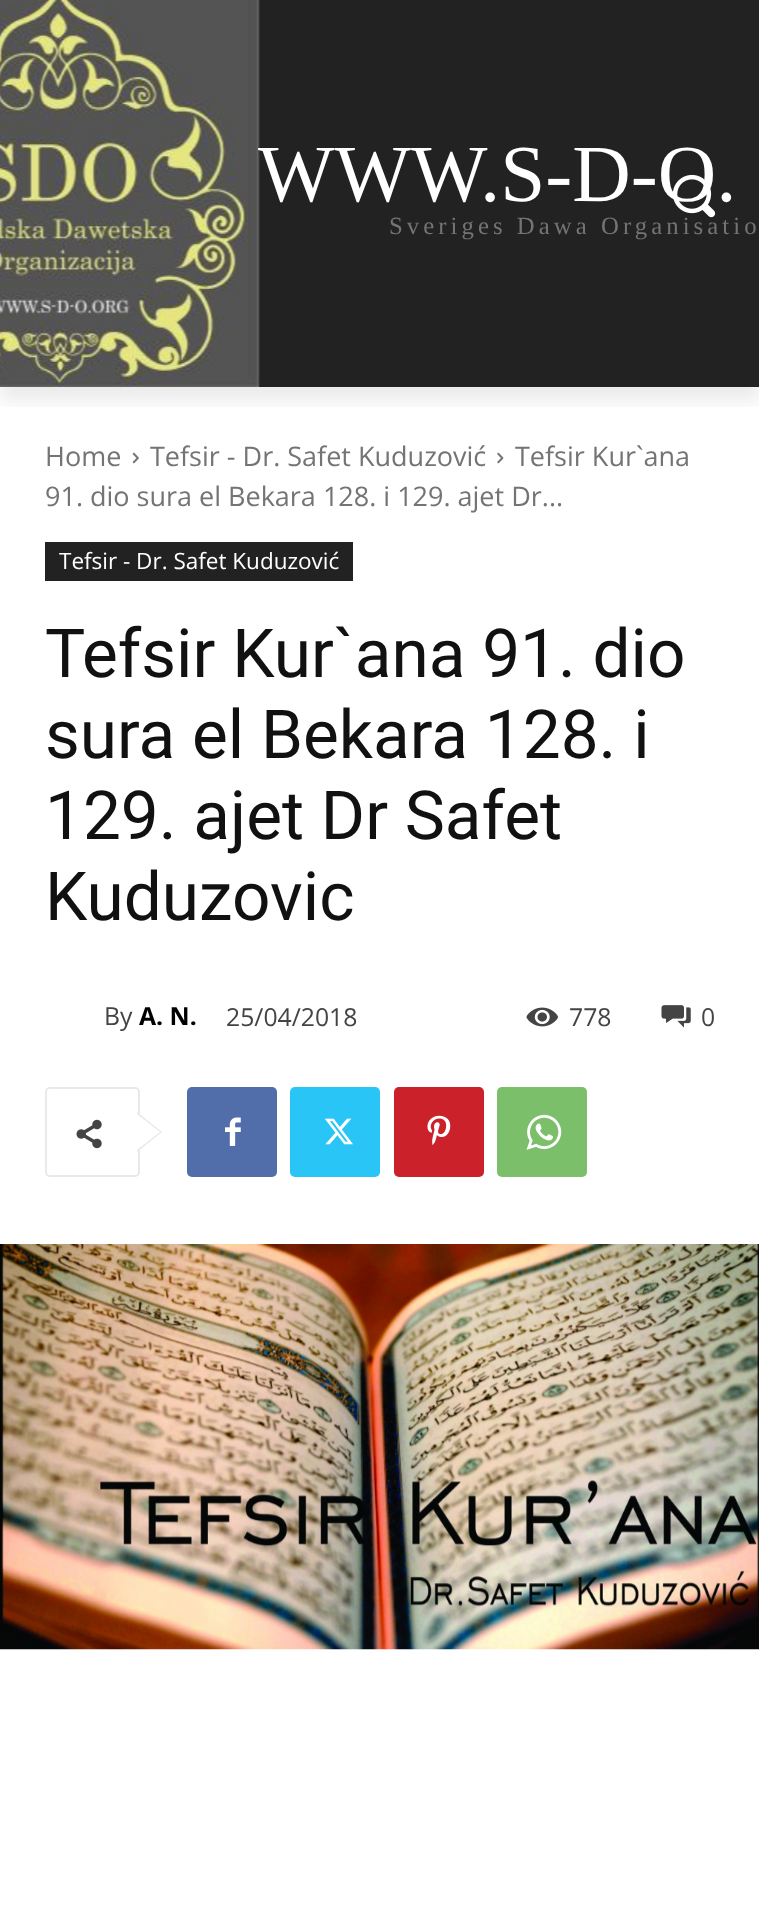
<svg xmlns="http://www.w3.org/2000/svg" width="759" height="1908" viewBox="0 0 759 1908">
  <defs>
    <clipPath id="clip1"><rect x="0" y="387" width="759" height="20"/></clipPath>
  </defs>
  <rect width="100%" height="100%" fill="rgb(255,255,255)"/>
  <rect x="258" y="0" width="501" height="387" fill="rgb(34,34,34)"/>
  <image x="0" y="0" width="260" height="387" href="pic1.png"/>
  <text x="258" y="201" font-family="Liberation Serif" font-size="81" fill="rgb(255,255,255)">WWW.S-D-O.</text>
  <text x="389" y="234" font-family="Liberation Serif" font-size="24.75" letter-spacing="4.05" fill="rgb(116,116,116)">Sveriges Dawa Organisatio</text>
  <image x="673" y="174" width="43" height="44" href="pic2.png"/>
  <g clip-path="url(#clip1)">
    <rect x="0" y="14" width="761" height="387" fill="rgba(0,0,0,0.08)" filter="blur(9px)"/>
  </g>
  <text x="45" y="466" font-family="Open Sans" font-size="27" fill="rgb(116,116,116)">Home</text>
  <image x="132" y="452" width="7" height="12" href="pic3.png"/>
  <text x="150" y="466" font-family="Open Sans" font-size="27" fill="rgb(116,116,116)">Tefsir - Dr. Safet Kuduzović</text>
  <image x="497" y="452" width="7" height="12" href="pic4.png"/>
  <g font-family="Open Sans" font-size="27" fill="rgb(116,116,116)">
    <text x="515" y="466">Tefsir Kur`ana</text>
    <text x="45" y="506">91. dio sura el Bekara 128. i 129. ajet Dr...</text>
  </g>
  <rect x="45" y="542" width="308" height="39" fill="rgb(34,34,34)"/>
  <text x="59" y="569" font-family="Open Sans" font-size="22.5" fill="rgb(255,255,255)">Tefsir - Dr. Safet Kuduzović</text>
  <g font-family="Roboto" font-size="67.5" fill="rgb(17,17,17)">
    <text>
      <tspan x="45" y="677">Tefsir Kur`ana 91. dio</tspan>
      <tspan x="45" y="758">sura el Bekara 128. i</tspan>
      <tspan x="45" y="839">129. ajet Dr Safet</tspan>
      <tspan x="45" y="920">Kuduzovic</tspan>
    </text>
  </g>
  <text x="104" y="1025" font-family="Open Sans" font-size="24.75" fill="rgb(68,68,68)">By</text>
  <text x="139" y="1025" font-family="Open Sans" font-size="24.75" font-weight="bold" fill="rgb(0,0,0)">A. N.</text>
  <text x="226" y="1026" font-family="Open Sans" font-size="24.75" fill="rgb(68,68,68)">25/04/2018</text>
  <image x="526" y="1007" width="32" height="20" href="pic5.png"/>
  <text x="569" y="1026" font-family="Open Sans" font-size="24.75" fill="rgb(68,68,68)">778</text>
  <image x="661" y="1005" width="30" height="23" href="pic6.png"/>
  <text x="701" y="1026" font-family="Open Sans" font-size="24.75" fill="rgb(68,68,68)">0</text>
  <rect x="46" y="1088" width="93" height="88" rx="4" fill="none" stroke="rgb(233,233,233)" stroke-width="2"/>
  <path d="M137 1152V1112L162 1132Z" fill="rgb(233,233,233)"/>
  <image x="76" y="1119" width="26" height="30" href="pic7.png"/>
  <path d="M137 1150V1114L160 1132Z" fill="rgb(255,255,255)"/>
  <rect x="187" y="1087" width="90" height="90" rx="5" fill="rgb(81,110,171)"/>
  <image x="225" y="1117" width="16" height="29" href="pic8.png"/>
  <rect x="290" y="1087" width="90" height="90" rx="5" fill="rgb(41,197,246)"/>
  <image x="324" y="1118" width="29" height="27" href="pic9.png"/>
  <rect x="394" y="1087" width="90" height="90" rx="5" fill="rgb(202,33,42)"/>
  <image x="427" y="1115" width="24" height="30" href="pic10.png"/>
  <rect x="497" y="1087" width="90" height="90" rx="5" fill="rgb(123,191,106)"/>
  <image x="526" y="1114" width="36" height="36" href="pic11.png"/>
  <image x="0" y="1244" width="759" height="406" href="pic12.png"/>
</svg>
